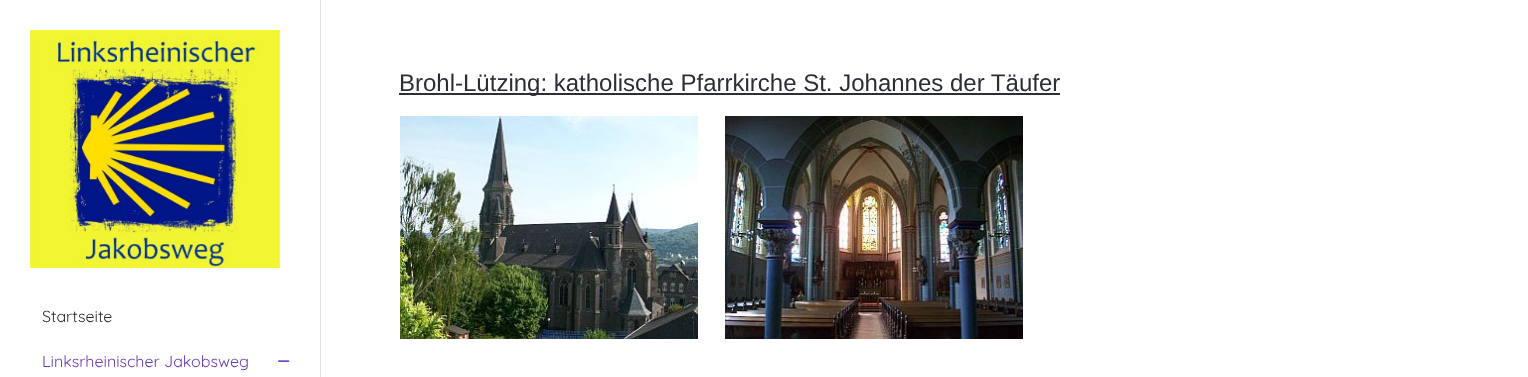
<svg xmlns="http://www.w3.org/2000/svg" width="1528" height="377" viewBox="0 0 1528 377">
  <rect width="100%" height="100%" fill="rgb(255,255,255)"/>
  <rect x="399" y="93" width="661" height="2" fill="rgb(44,46,54)"/>
  <text x="399" y="91" font-family="Liberation Sans" font-size="24" fill="rgb(44,46,54)">Brohl-Lützing: katholische Pfarrkirche St. Johannes der Täufer</text>
  <image x="400" y="116" width="298" height="223" href="pic1.png"/>
  <image x="725" y="116" width="298" height="223" href="pic2.png"/>
  <rect x="320" y="0" width="1" height="377" fill="rgb(222,226,230)"/>
  <image x="30" y="30" width="250" height="238" href="pic3.png"/>
  <text x="42" y="322" font-family="Quicksand" font-size="16" font-weight="300" fill="rgb(44,46,54)">Startseite</text>
  <text x="42" y="367" font-family="Quicksand" font-size="16" font-weight="300" fill="rgb(103,58,183)">Linksrheinischer Jakobsweg</text>
  <image x="278" y="360" width="12" height="2" href="pic4.png"/>
</svg>
